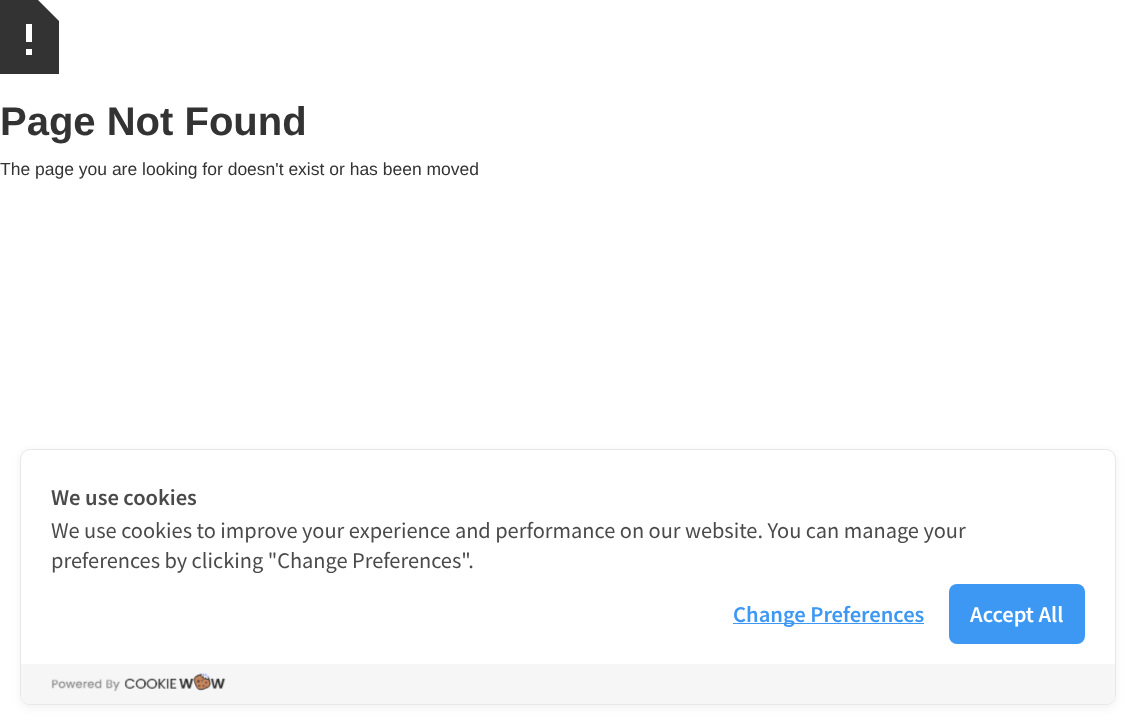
<svg xmlns="http://www.w3.org/2000/svg" width="1136" height="725" viewBox="0 0 1136 725">
  <rect width="100%" height="100%" fill="rgb(255,255,255)"/>
  <path d="M0 0H38L59 21V74H0ZM26 24H32V42H26ZM26 49H32V55H26Z" fill="rgb(51,51,51)" fill-rule="evenodd"/>
  <text x="0" y="135" font-family="Liberation Sans" font-size="40" font-weight="bold" fill="rgb(51,51,51)">Page Not Found</text>
  <text x="0" y="175" font-family="Liberation Sans" font-size="17.5" fill="rgb(51,51,51)">The page you are looking for doesn't exist or has been moved</text>
  <rect x="20" y="451" width="1096" height="257" rx="10" fill="rgba(0,0,0,0.05)" filter="blur(5px)"/>
  <rect x="20.5" y="449.5" width="1095" height="255" rx="9.5" fill="rgb(255,255,255)" stroke="rgb(232,232,232)"/>
  <text x="51" y="505" font-family="Noto Sans JP" font-size="20" font-weight="600" fill="rgb(74,74,74)">We use cookies</text>
  <g font-family="Noto Sans JP" font-size="20" fill="rgb(74,74,74)">
    <text>
      <tspan x="51" y="538">We use cookies to improve your experience and performance on our website. You can manage your</tspan>
      <tspan x="51" y="568">preferences by clicking "Change Preferences".</tspan>
    </text>
  </g>
  <rect x="733" y="623" width="191" height="1" fill="rgb(61,152,243)"/>
  <text x="733" y="622" font-family="Noto Sans JP" font-size="20" font-weight="600" fill="rgb(61,152,243)">Change Preferences</text>
  <rect x="949" y="584" width="136" height="60" rx="8" fill="rgb(61,152,243)"/>
  <text x="970" y="622" font-family="Noto Sans JP" font-size="20" font-weight="600" fill="rgb(255,255,255)">Accept All</text>
  <path d="M21 664H1115V694C1115 699.5 1110.5 704 1105 704H31C25.5 704 21 699.5 21 694Z" fill="rgb(246,246,246)"/>
  <image x="51" y="672" width="175" height="20" href="pic1.png"/>
</svg>
